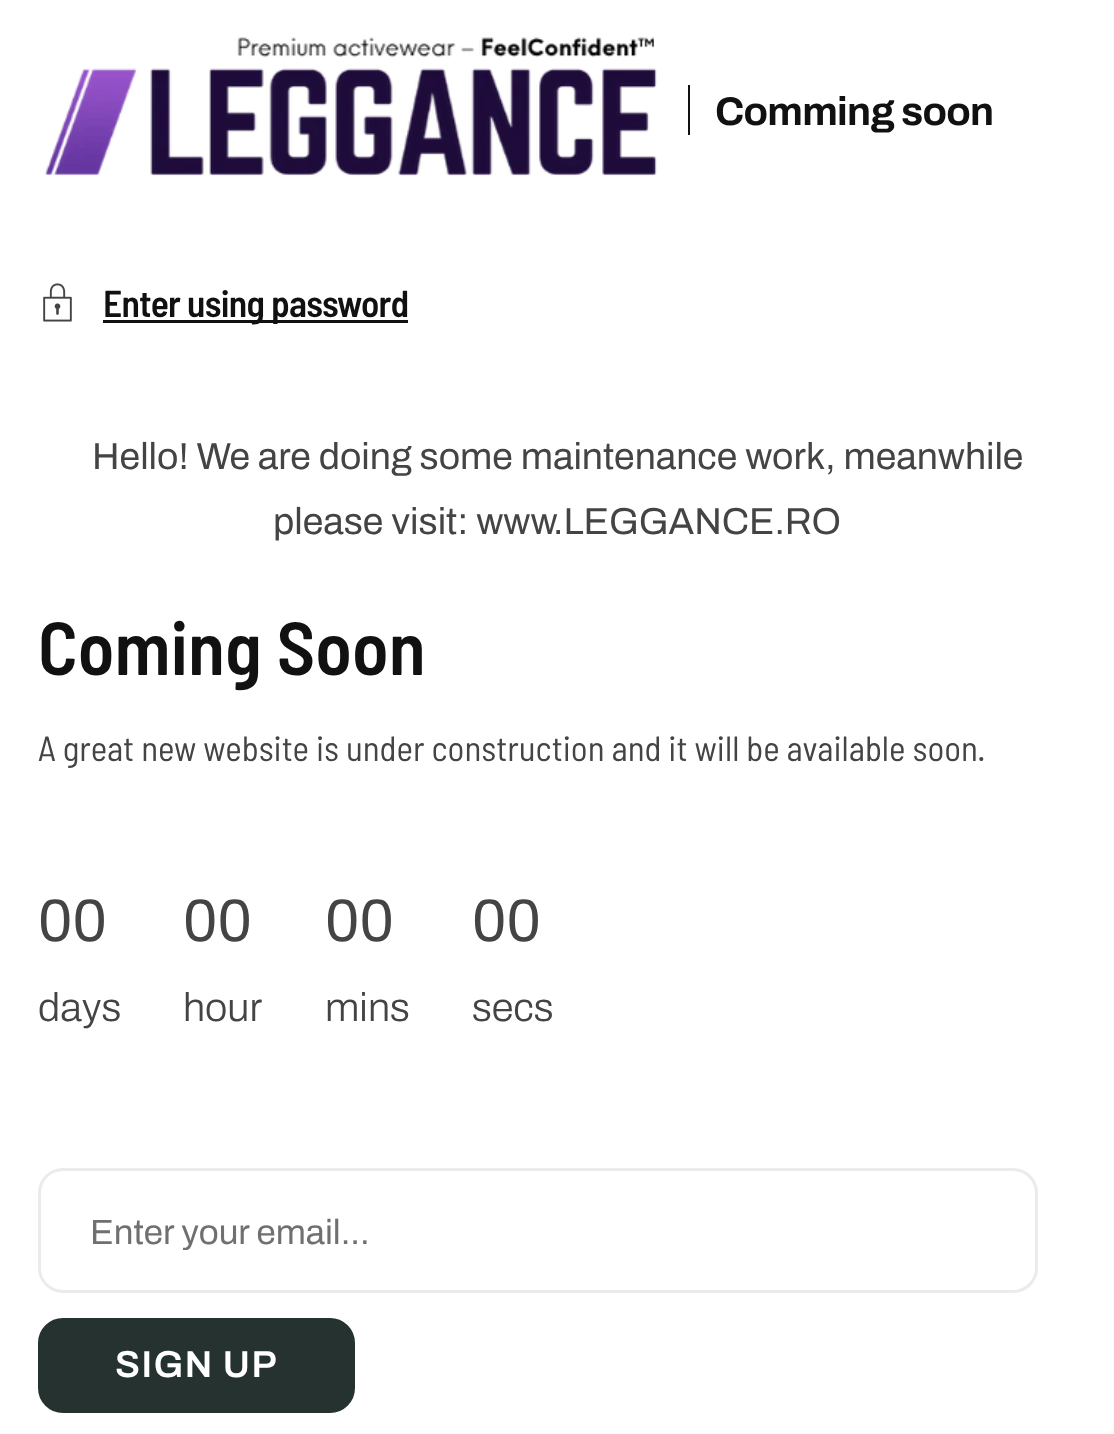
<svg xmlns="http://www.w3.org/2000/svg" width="1114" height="1434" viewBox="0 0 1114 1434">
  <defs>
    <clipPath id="clip1"><rect x="90" y="1213" width="895" height="37"/></clipPath>
  </defs>
  <rect width="100%" height="100%" fill="rgb(255,255,255)"/>
  <image x="44" y="37" width="613" height="139" href="pic1.png"/>
  <rect x="688" y="85" width="2" height="50" fill="rgb(17,17,17)"/>
  <text x="715" y="125" font-family="Archivo" font-size="40" font-weight="bold" letter-spacing="-0.75" fill="rgb(17,17,17)">Comming soon</text>
  <image x="43" y="283" width="29" height="39" href="pic2.png"/>
  <rect x="103" y="320" width="305" height="3" fill="rgb(17,17,17)"/>
  <text x="103" y="317" font-family="Barlow Semi Condensed" font-size="37.5" font-weight="600" letter-spacing="-0.7" fill="rgb(17,17,17)">Enter using password</text>
  <g font-family="Archivo" font-size="37.5" fill="rgb(68,68,68)">
    <text x="92" y="469">Hello! We are doing some maintenance work, meanwhile</text>
    <text x="273" y="534">please visit: www.LEGGANCE.RO</text>
  </g>
  <text x="38" y="675" font-family="Barlow Semi Condensed" font-size="75" font-weight="600" fill="rgb(17,17,17)">Coming Soon</text>
  <text x="38" y="761" font-family="Barlow Semi Condensed" font-size="35" fill="rgb(68,68,68)">A great new website is under construction and it will be available soon.</text>
  <text x="38" y="941" font-family="Archivo" font-size="60" fill="rgb(68,68,68)">00</text>
  <text x="38" y="1021" font-family="Archivo" font-size="40" font-weight="300" fill="rgb(68,68,68)">days</text>
  <text x="183" y="941" font-family="Archivo" font-size="60" fill="rgb(68,68,68)">00</text>
  <text x="183" y="1021" font-family="Archivo" font-size="40" font-weight="300" fill="rgb(68,68,68)">hour</text>
  <text x="325" y="941" font-family="Archivo" font-size="60" fill="rgb(68,68,68)">00</text>
  <text x="325" y="1021" font-family="Archivo" font-size="40" font-weight="300" fill="rgb(68,68,68)">mins</text>
  <text x="472" y="941" font-family="Archivo" font-size="60" fill="rgb(68,68,68)">00</text>
  <text x="472" y="1021" font-family="Archivo" font-size="40" font-weight="300" fill="rgb(68,68,68)">secs</text>
  <rect x="39.5" y="1169.5" width="997" height="122" rx="23.5" fill="none" stroke="rgb(235,235,235)" stroke-width="3"/>
  <g clip-path="url(#clip1)">
    <text x="90" y="1244" font-family="Archivo" font-size="35" fill="rgb(112,112,112)">Enter your email...</text>
  </g>
  <rect x="39.5" y="1319.5" width="314" height="92" rx="23.5" fill="rgb(37,50,48)" stroke="rgb(37,50,48)" stroke-width="3"/>
  <text x="115" y="1377" font-family="Archivo" font-size="37.5" font-weight="600" letter-spacing="1.5" fill="rgb(255,255,255)">SIGN UP</text>
</svg>
